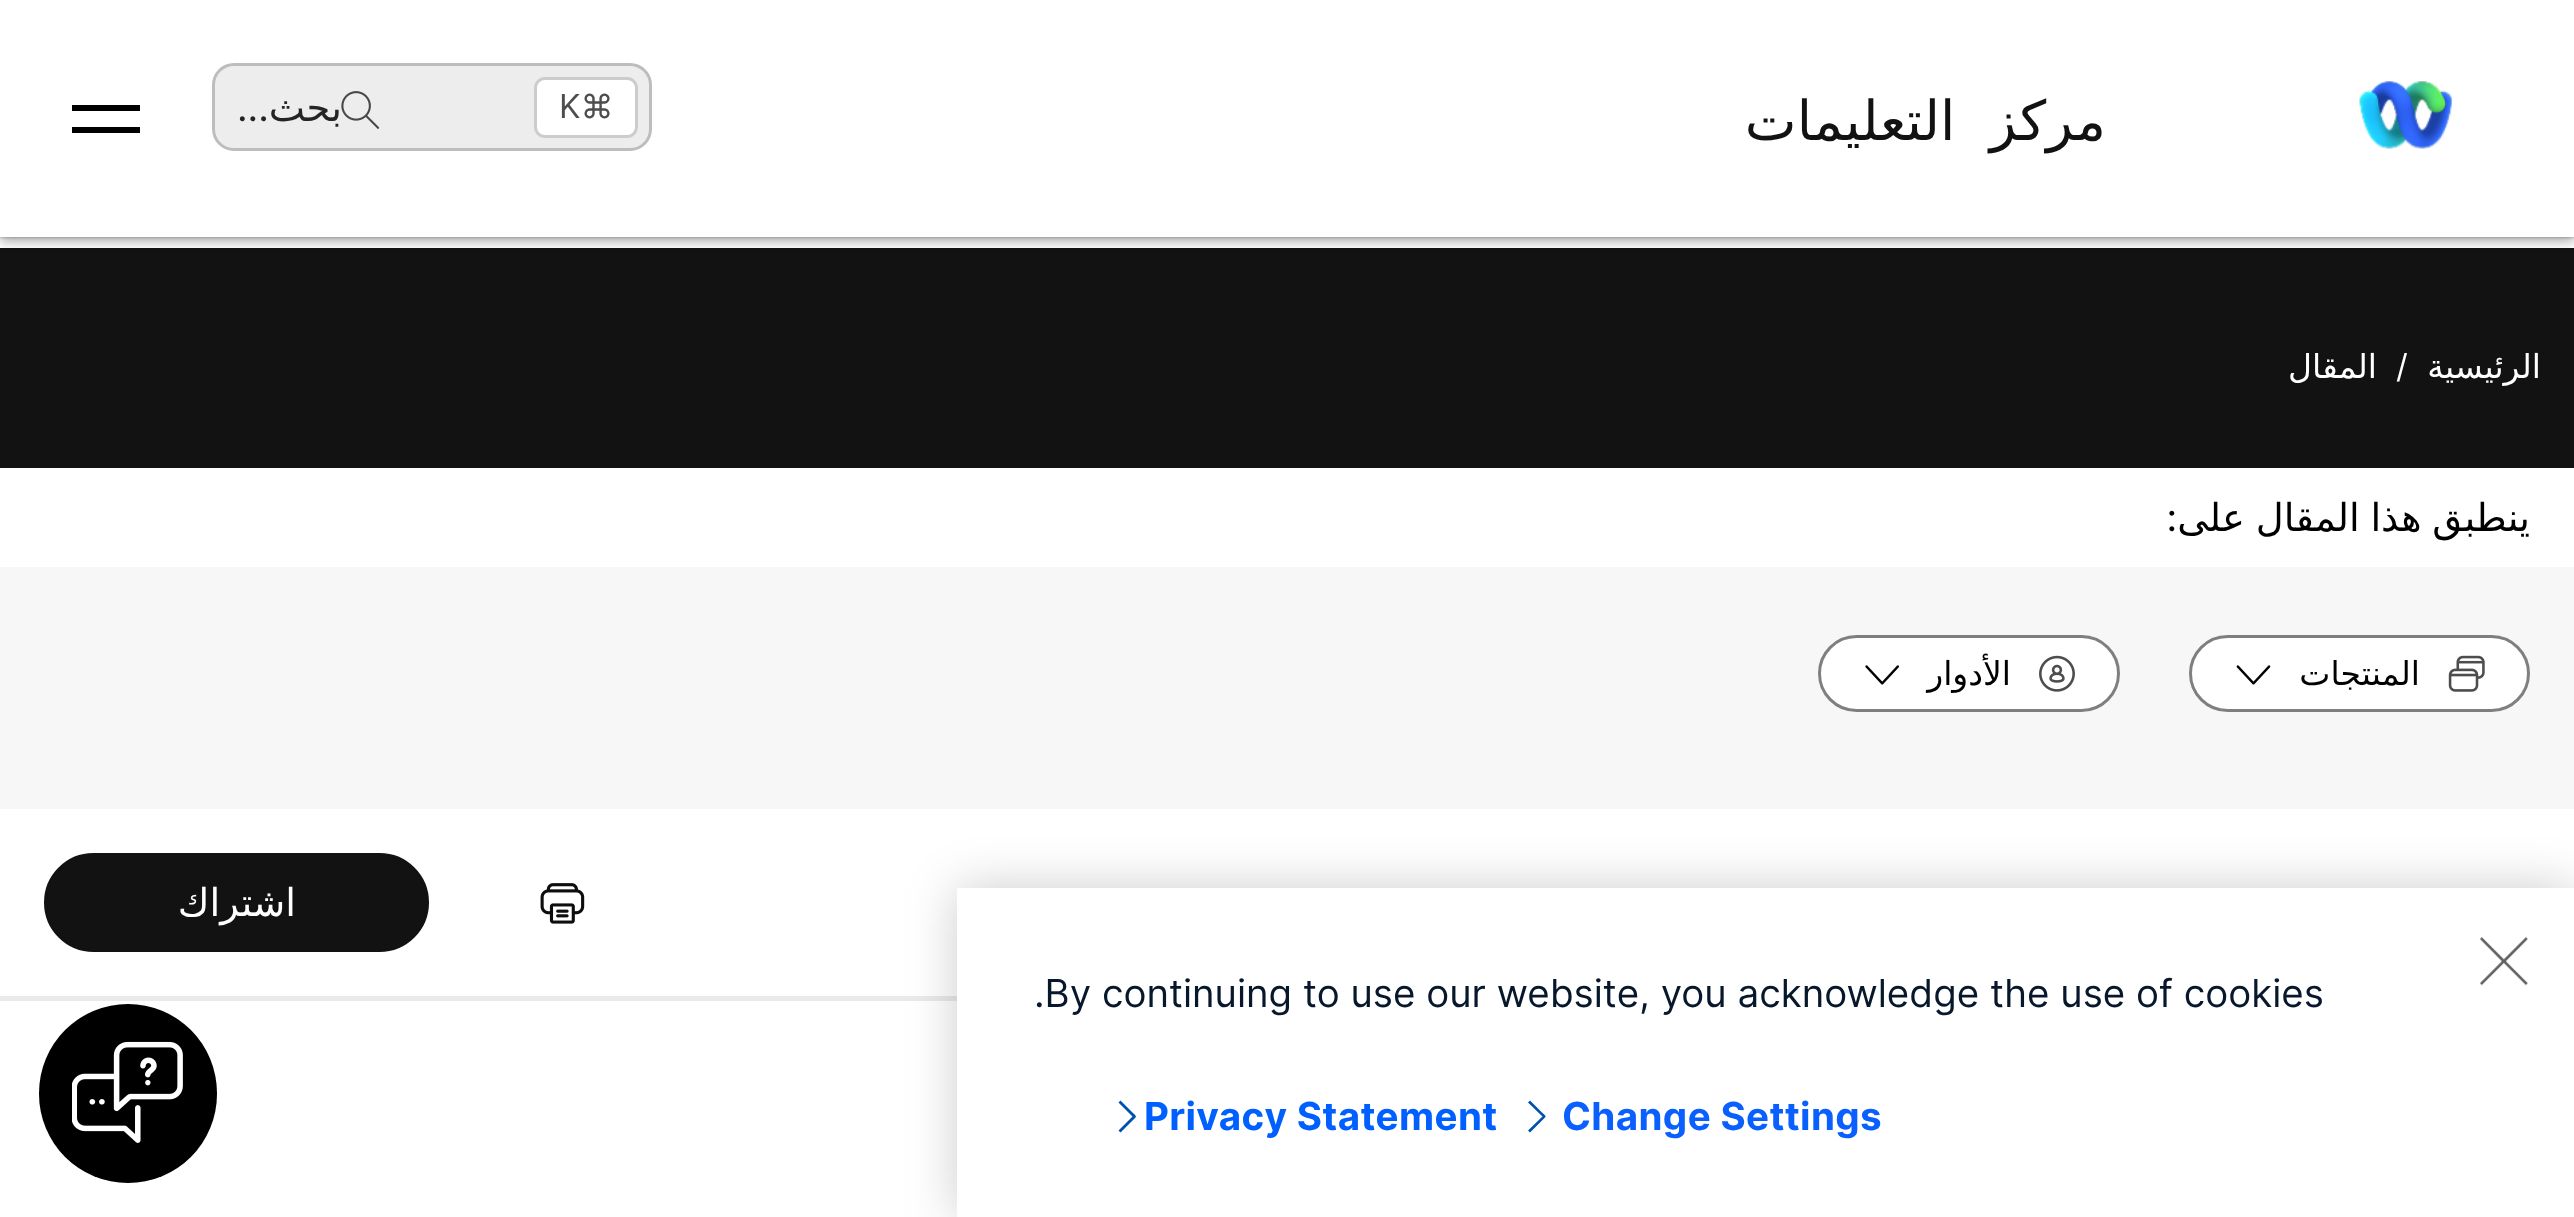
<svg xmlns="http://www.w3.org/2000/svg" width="2574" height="1217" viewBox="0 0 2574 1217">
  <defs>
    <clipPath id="clip1"><path d="M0 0H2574V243H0ZM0 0H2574V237H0Z" clip-rule="evenodd"/></clipPath>
    <clipPath id="clip2"><path d="M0 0H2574V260H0ZM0 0H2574V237H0Z" clip-rule="evenodd"/></clipPath>
  </defs>
  <rect width="100%" height="100%" fill="rgb(255,255,255)"/>
  <rect x="0" y="0" width="2574" height="237" fill="rgba(0,0,0,0.18)" filter="blur(1.5px)"/>
  <rect x="0" y="248" width="2574" height="220" fill="rgb(18,18,18)"/>
  <rect x="0" y="6" width="2574" height="236" fill="rgba(0,0,0,0.16)" filter="blur(5.5px)"/>
  <rect x="0" y="0" width="2574" height="237" fill="rgb(255,255,255)"/>
  <g clip-path="url(#clip1)">
    <rect x="0" y="0" width="2574" height="237" fill="rgba(0,0,0,0.18)" filter="blur(1.5px)"/>
  </g>
  <g clip-path="url(#clip2)">
    <rect x="0" y="6" width="2574" height="236" fill="rgba(0,0,0,0.16)" filter="blur(5.5px)"/>
  </g>
  <rect x="72" y="105" width="68" height="6" fill="rgb(0,0,0)"/>
  <rect x="72" y="127" width="68" height="6" fill="rgb(0,0,0)"/>
  <rect x="212" y="63" width="440" height="88" rx="22" fill="rgb(237,237,237)"/>
  <rect x="213.5" y="64.5" width="437" height="85" rx="20.5" fill="none" stroke="rgba(0,0,0,0.2)" stroke-width="3"/>
  <text x="237" y="121" font-family="Inter" font-size="38.5" fill="rgb(36,36,36)">...</text>
  <text x="342" y="121" font-family="DejaVu Sans" font-size="38.5" direction="rtl" fill="rgb(36,36,36)">بحث</text>
  <image x="341" y="91" width="39" height="38" href="pic1.png"/>
  <rect x="534" y="77" width="104" height="61" rx="11" fill="rgb(255,255,255)"/>
  <rect x="535.5" y="78.5" width="101" height="58" rx="9.5" fill="none" stroke="rgba(0,0,0,0.2)" stroke-width="3"/>
  <text x="559" y="118" font-family="Inter" font-size="33" fill="rgb(77,77,77)">K⌘</text>
  <text x="2106" y="140" word-spacing="17" font-family="DejaVu Sans" font-size="55" letter-spacing="-1.4" direction="rtl" fill="rgb(18,18,18)">مركز التعليمات</text>
  <image x="2359" y="81" width="94" height="68" href="pic2.png"/>
  <text x="2377" y="378" font-family="DejaVu Sans" font-size="33" direction="rtl" fill="rgb(255,255,255)">المقال</text>
  <text x="2396" y="378" font-family="Inter" font-size="33" fill="rgb(255,255,255)">/</text>
  <text x="2541" y="378" font-family="DejaVu Sans" font-size="33" direction="rtl" fill="rgb(255,255,255)">الرئيسية</text>
  <rect x="0" y="996" width="957" height="5" fill="rgb(234,234,234)"/>
  <text x="2177" y="531" font-family="Inter" font-size="38.5" direction="rtl" fill="rgb(0,0,0)">:</text>
  <text x="2530" y="531" word-spacing="-1.5" font-family="DejaVu Sans" font-size="38.5" direction="rtl" fill="rgb(0,0,0)">ينطبق هذا المقال على</text>
  <rect x="0" y="567" width="2574" height="242" fill="rgb(247,247,247)"/>
  <rect x="1818" y="635" width="302" height="77" rx="38.5" fill="rgb(255,255,255)"/>
  <rect x="1819.5" y="636.5" width="299" height="74" rx="37" fill="none" stroke="rgba(0,0,0,0.5)" stroke-width="3"/>
  <image x="1865" y="665" width="34" height="20" href="pic3.png"/>
  <text x="2011" y="685" font-family="DejaVu Sans" font-size="33" direction="rtl" fill="rgb(0,0,0)">الأدوار</text>
  <image x="2039" y="655" width="36" height="37" href="pic4.png"/>
  <rect x="2189" y="635" width="341" height="77" rx="38.5" fill="rgb(255,255,255)"/>
  <rect x="2190.5" y="636.5" width="338" height="74" rx="37" fill="none" stroke="rgba(0,0,0,0.5)" stroke-width="3"/>
  <image x="2236" y="665" width="35" height="20" href="pic5.png"/>
  <text x="2420" y="685" font-family="DejaVu Sans" font-size="33" direction="rtl" fill="rgb(0,0,0)">المنتجات</text>
  <image x="2448" y="655" width="37" height="37" href="pic6.png"/>
  <rect x="45.5" y="854.5" width="382" height="96" rx="48" fill="rgb(18,18,18)" stroke="rgb(18,18,18)" stroke-width="3"/>
  <text x="296" y="916" font-family="DejaVu Sans" font-size="38.5" direction="rtl" fill="rgb(255,255,255)">اشتراك</text>
  <image x="540" y="883" width="45" height="41" href="pic7.png"/>
  <rect x="39" y="1004" width="178" height="179" rx="89" fill="rgb(0,0,0)"/>
  <image x="72" y="1041" width="111" height="102" href="pic8.png"/>
  <rect x="957" y="888" width="1617" height="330" fill="rgba(0,0,0,0.2)" filter="blur(25px)"/>
  <rect x="957" y="888" width="1617" height="329" fill="rgb(255,255,255)"/>
  <image x="2480" y="937" width="48" height="49" href="pic9.png"/>
  <text x="1034" y="1007" font-family="Inter" font-size="38.5" fill="rgb(7,24,45)">.By continuing to use our website, you acknowledge the use of cookies</text>
  <text x="1144" y="1130" font-family="Inter" font-size="38.5" font-weight="bold" letter-spacing="0.4" fill="rgb(0,96,255)">Privacy Statement</text>
  <path d="M1530 1132.5L1528 1130.5L1542.5 1116.5L1528 1102.5L1530 1100.5L1542.5 1113C1543 1113.5 1547 1116 1545 1117.5Z" fill="rgb(0,81,175)"/>
  <path d="M1120.5 1132.5L1118.5 1130.5L1132.5 1116.5L1118.5 1102.5L1120.5 1100.5L1133 1113C1133.5 1113.5 1137 1116 1135.5 1117.5Z" fill="rgb(0,81,175)"/>
  <text x="1562" y="1130" font-family="Inter" font-size="38.5" font-weight="bold" letter-spacing="0.4" fill="rgb(10,96,255)">Change Settings</text>
</svg>
